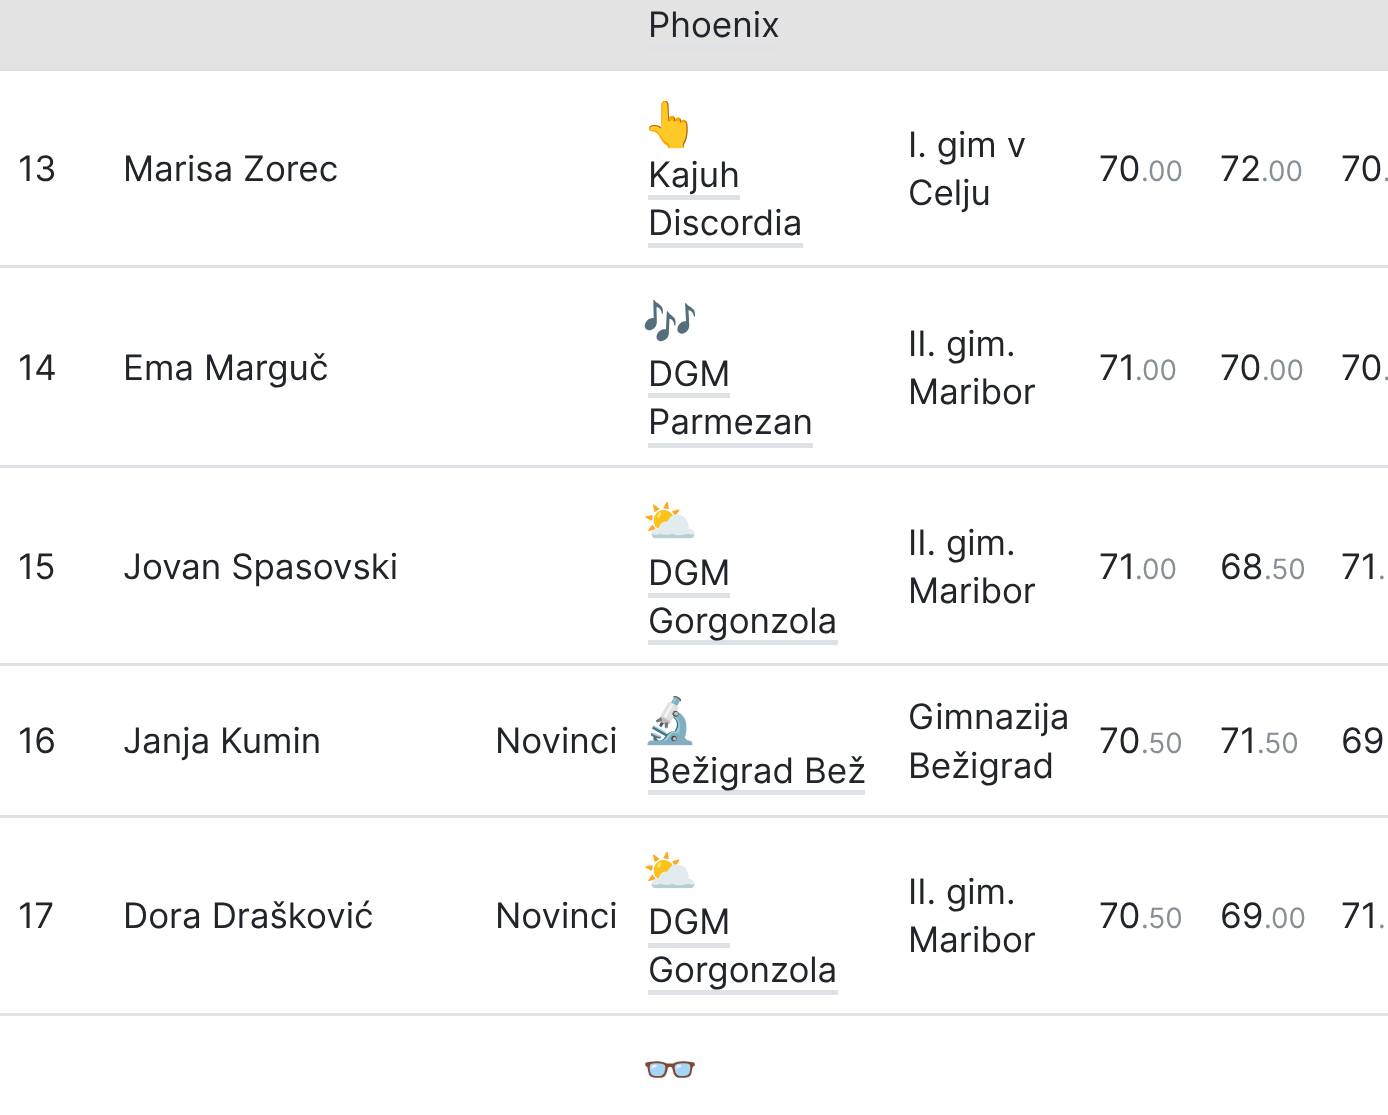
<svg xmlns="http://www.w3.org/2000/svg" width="1388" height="1115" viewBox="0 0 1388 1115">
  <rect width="100%" height="100%" fill="rgb(255,255,255)"/>
  <rect x="0" y="0" width="1388" height="68" fill="rgb(227,227,227)"/>
  <text x="648" y="37" font-family="Inter" font-size="35" fill="rgb(33,37,41)">Phoenix</text>
  <rect x="648" y="45" width="132" height="5" fill="rgb(222,226,230)"/>
  <g font-family="Inter" font-size="35" fill="rgb(33,37,41)">
    <text x="18" y="181">13</text>
    <text x="123" y="181">Marisa Zorec</text>
  </g>
  <text x="642" y="140" font-family="Noto Color Emoji" font-size="45" fill="rgb(33,37,41)">👆</text>
  <text x="648" y="187" font-family="Inter" font-size="35" fill="rgb(33,37,41)">Kajuh</text>
  <rect x="648" y="195" width="92" height="5" fill="rgb(222,226,230)"/>
  <text x="648" y="235" font-family="Inter" font-size="35" fill="rgb(33,37,41)">Discordia</text>
  <rect x="648" y="243" width="155" height="5" fill="rgb(222,226,230)"/>
  <g font-family="Inter" font-size="35" fill="rgb(33,37,41)">
    <text>
      <tspan x="908" y="157">I. gim v</tspan>
      <tspan x="908" y="205">Celju</tspan>
    </text>
    <text x="1099" y="181">70</text>
  </g>
  <text x="1141" y="181" font-family="Inter" font-size="28" fill="rgb(134,142,150)">.00</text>
  <text x="1220" y="181" font-family="Inter" font-size="35" fill="rgb(33,37,41)">72</text>
  <text x="1261" y="181" font-family="Inter" font-size="28" fill="rgb(134,142,150)">.00</text>
  <rect x="0" y="68" width="1388" height="3" fill="rgb(222,226,230)"/>
  <text x="1341" y="181" font-family="Inter" font-size="35" fill="rgb(33,37,41)">70</text>
  <text x="1383" y="181" font-family="Inter" font-size="28" fill="rgb(134,142,150)">.</text>
  <g font-family="Inter" font-size="35" fill="rgb(33,37,41)">
    <text x="18" y="380">14</text>
    <text x="123" y="380">Ema Marguč</text>
  </g>
  <text x="642" y="338" font-family="Noto Color Emoji" font-size="45" fill="rgb(33,37,41)">🎶</text>
  <text x="648" y="386" font-family="Inter" font-size="35" fill="rgb(33,37,41)">DGM</text>
  <rect x="648" y="393" width="82" height="5" fill="rgb(222,226,230)"/>
  <text x="648" y="434" font-family="Inter" font-size="35" fill="rgb(33,37,41)">Parmezan</text>
  <rect x="648" y="443" width="165" height="5" fill="rgb(222,226,230)"/>
  <g font-family="Inter" font-size="35" fill="rgb(33,37,41)">
    <text>
      <tspan x="908" y="356">II. gim.</tspan>
      <tspan x="908" y="404">Maribor</tspan>
    </text>
    <text x="1099" y="380">71</text>
  </g>
  <text x="1135" y="380" font-family="Inter" font-size="28" fill="rgb(134,142,150)">.00</text>
  <text x="1220" y="380" font-family="Inter" font-size="35" fill="rgb(33,37,41)">70</text>
  <text x="1262" y="380" font-family="Inter" font-size="28" fill="rgb(134,142,150)">.00</text>
  <rect x="0" y="265" width="1388" height="3" fill="rgb(222,226,230)"/>
  <text x="1341" y="380" font-family="Inter" font-size="35" fill="rgb(33,37,41)">70</text>
  <text x="1383" y="380" font-family="Inter" font-size="28" fill="rgb(134,142,150)">.</text>
  <g font-family="Inter" font-size="35" fill="rgb(33,37,41)">
    <text x="18" y="579">15</text>
    <text x="123" y="579">Jovan Spasovski</text>
  </g>
  <text x="642" y="537" font-family="Noto Color Emoji" font-size="45" fill="rgb(33,37,41)">⛅</text>
  <text x="648" y="585" font-family="Inter" font-size="35" fill="rgb(33,37,41)">DGM</text>
  <rect x="648" y="593" width="82" height="5" fill="rgb(222,226,230)"/>
  <rect x="648" y="640" width="190" height="5" fill="rgb(222,226,230)"/>
  <g font-family="Inter" font-size="35" fill="rgb(33,37,41)">
    <text x="648" y="633">Gorgonzola</text>
    <text>
      <tspan x="908" y="555">II. gim.</tspan>
      <tspan x="908" y="603">Maribor</tspan>
    </text>
    <text x="1099" y="579">71</text>
  </g>
  <text x="1135" y="579" font-family="Inter" font-size="28" fill="rgb(134,142,150)">.00</text>
  <text x="1220" y="579" font-family="Inter" font-size="35" fill="rgb(33,37,41)">68</text>
  <text x="1264" y="579" font-family="Inter" font-size="28" fill="rgb(134,142,150)">.50</text>
  <rect x="0" y="465" width="1388" height="3" fill="rgb(222,226,230)"/>
  <text x="1341" y="579" font-family="Inter" font-size="35" fill="rgb(33,37,41)">71</text>
  <text x="1378" y="579" font-family="Inter" font-size="28" fill="rgb(134,142,150)">.</text>
  <g font-family="Inter" font-size="35" fill="rgb(33,37,41)">
    <text x="18" y="753">16</text>
    <text x="123" y="753">Janja Kumin</text>
    <text x="495" y="753">Novinci</text>
  </g>
  <text x="642" y="736" font-family="Noto Color Emoji" font-size="45" fill="rgb(33,37,41)">🔬</text>
  <rect x="648" y="790" width="217" height="5" fill="rgb(222,226,230)"/>
  <g font-family="Inter" font-size="35" fill="rgb(33,37,41)">
    <text x="648" y="783">Bežigrad Bež</text>
    <text>
      <tspan x="908" y="729">Gimnazija</tspan>
      <tspan x="908" y="778">Bežigrad</tspan>
    </text>
    <text x="1099" y="753">70</text>
  </g>
  <text x="1141" y="753" font-family="Inter" font-size="28" fill="rgb(134,142,150)">.50</text>
  <text x="1220" y="753" font-family="Inter" font-size="35" fill="rgb(33,37,41)">71</text>
  <text x="1257" y="753" font-family="Inter" font-size="28" fill="rgb(134,142,150)">.50</text>
  <rect x="0" y="663" width="1388" height="3" fill="rgb(222,226,230)"/>
  <g font-family="Inter" font-size="35" fill="rgb(33,37,41)">
    <text x="1341" y="753">69</text>
    <text x="18" y="928">17</text>
    <text x="123" y="928">Dora Drašković</text>
    <text x="495" y="928">Novinci</text>
  </g>
  <text x="642" y="887" font-family="Noto Color Emoji" font-size="45" fill="rgb(33,37,41)">⛅</text>
  <text x="648" y="934" font-family="Inter" font-size="35" fill="rgb(33,37,41)">DGM</text>
  <rect x="648" y="943" width="82" height="5" fill="rgb(222,226,230)"/>
  <text x="648" y="982" font-family="Inter" font-size="35" fill="rgb(33,37,41)">Gorgonzola</text>
  <rect x="648" y="990" width="190" height="5" fill="rgb(222,226,230)"/>
  <g font-family="Inter" font-size="35" fill="rgb(33,37,41)">
    <text>
      <tspan x="908" y="904">II. gim.</tspan>
      <tspan x="908" y="952">Maribor</tspan>
    </text>
    <text x="1099" y="928">70</text>
  </g>
  <text x="1141" y="928" font-family="Inter" font-size="28" fill="rgb(134,142,150)">.50</text>
  <text x="1220" y="928" font-family="Inter" font-size="35" fill="rgb(33,37,41)">69</text>
  <text x="1264" y="928" font-family="Inter" font-size="28" fill="rgb(134,142,150)">.00</text>
  <rect x="0" y="815" width="1388" height="3" fill="rgb(222,226,230)"/>
  <text x="1341" y="928" font-family="Inter" font-size="35" fill="rgb(33,37,41)">71</text>
  <text x="1378" y="928" font-family="Inter" font-size="28" fill="rgb(134,142,150)">.</text>
  <rect x="0" y="1013" width="1388" height="3" fill="rgb(222,226,230)"/>
  <text x="642" y="1085" font-family="Noto Color Emoji" font-size="45" fill="rgb(33,37,41)">👓</text>
</svg>
